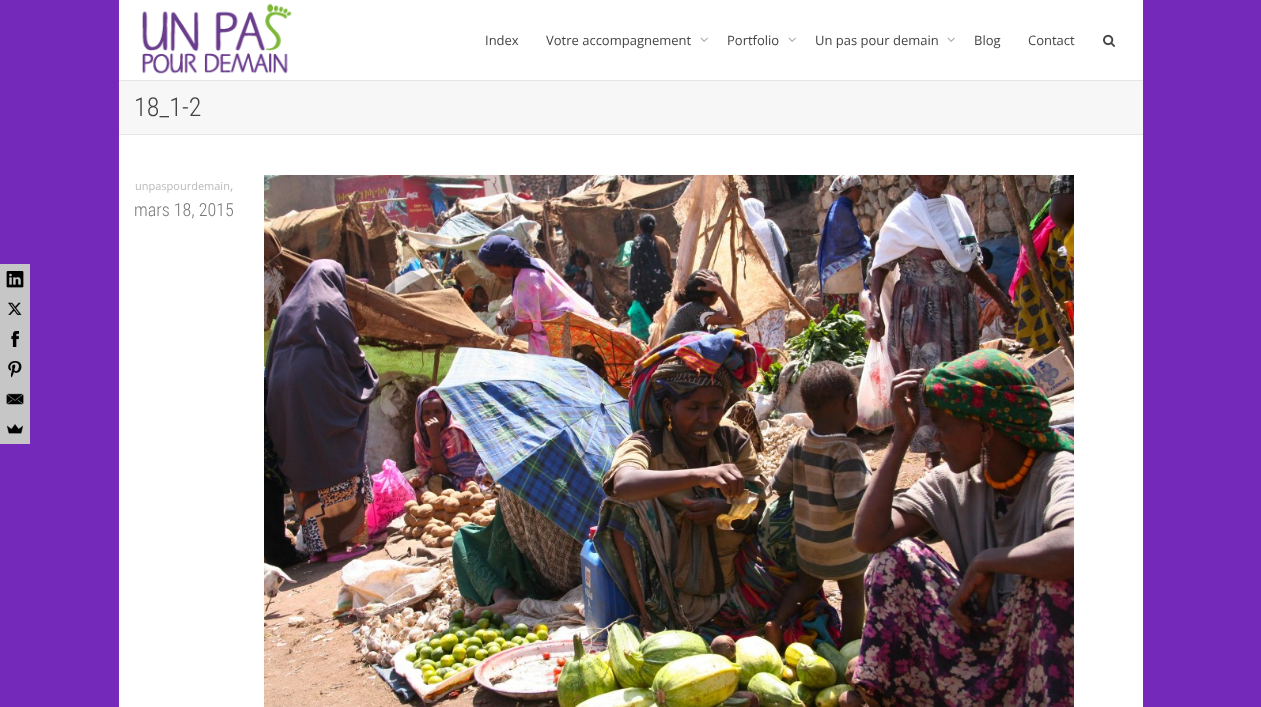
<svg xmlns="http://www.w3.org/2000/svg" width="1261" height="707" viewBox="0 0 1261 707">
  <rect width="100%" height="100%" fill="rgb(117,41,187)"/>
  <rect x="119" y="0" width="1024" height="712" fill="rgba(153,153,153,0.1)" filter="blur(1.5px)"/>
  <rect x="119" y="0" width="1024" height="80" fill="rgb(255,255,255)"/>
  <rect x="119" y="80" width="1024" height="1" fill="rgb(229,229,229)"/>
  <image x="142" y="3" width="150" height="71" href="pic1.png"/>
  <g font-family="Open Sans" font-size="13" fill="rgb(68,68,68)">
    <text x="485" y="45">Index</text>
    <text x="546" y="45">Votre accompagnement</text>
  </g>
  <image x="700" y="37" width="8" height="5" href="pic2.png"/>
  <text x="727" y="45" font-family="Open Sans" font-size="13" fill="rgb(68,68,68)">Portfolio</text>
  <image x="788" y="37" width="8" height="5" href="pic2.png"/>
  <text x="815" y="45" font-family="Open Sans" font-size="13" fill="rgb(68,68,68)">Un pas pour demain</text>
  <image x="947" y="37" width="8" height="5" href="pic2.png"/>
  <g font-family="Open Sans" font-size="13" fill="rgb(68,68,68)">
    <text x="974" y="45">Blog</text>
    <text x="1028" y="45">Contact</text>
  </g>
  <image x="1103" y="34" width="12" height="13" href="pic3.png"/>
  <rect x="119" y="81" width="1024" height="53" fill="rgb(247,247,247)"/>
  <rect x="119" y="134" width="1024" height="1" fill="rgb(229,229,229)"/>
  <text x="134" y="116" font-family="Roboto Condensed" font-size="26" font-weight="300" fill="rgb(68,68,68)">18_1-2</text>
  <rect x="119" y="135" width="1024" height="572" fill="rgb(255,255,255)"/>
  <text x="135" y="190" font-family="Open Sans" font-size="11" fill="rgb(187,187,187)">unpaspourdemain</text>
  <text x="230" y="190" font-family="Open Sans" font-size="13" fill="rgb(187,187,187)">,</text>
  <text x="134" y="216" font-family="Roboto Condensed" font-size="18" font-weight="300" fill="rgb(119,119,119)">mars 18, 2015</text>
  <image x="264" y="175" width="810" height="532" href="pic4.png"/>
  <rect x="0" y="264" width="30" height="180" fill="rgb(198,198,198)"/>
  <image x="6" y="271" width="18" height="17" href="pic5.png"/>
  <image x="7" y="302" width="15" height="13" href="pic6.png"/>
  <image x="11" y="331" width="8" height="16" href="pic7.png"/>
  <image x="8" y="361" width="14" height="17" href="pic8.png"/>
  <image x="6" y="393" width="18" height="12" href="pic9.png"/>
  <image x="7" y="424" width="16" height="10" href="pic10.png"/>
</svg>
